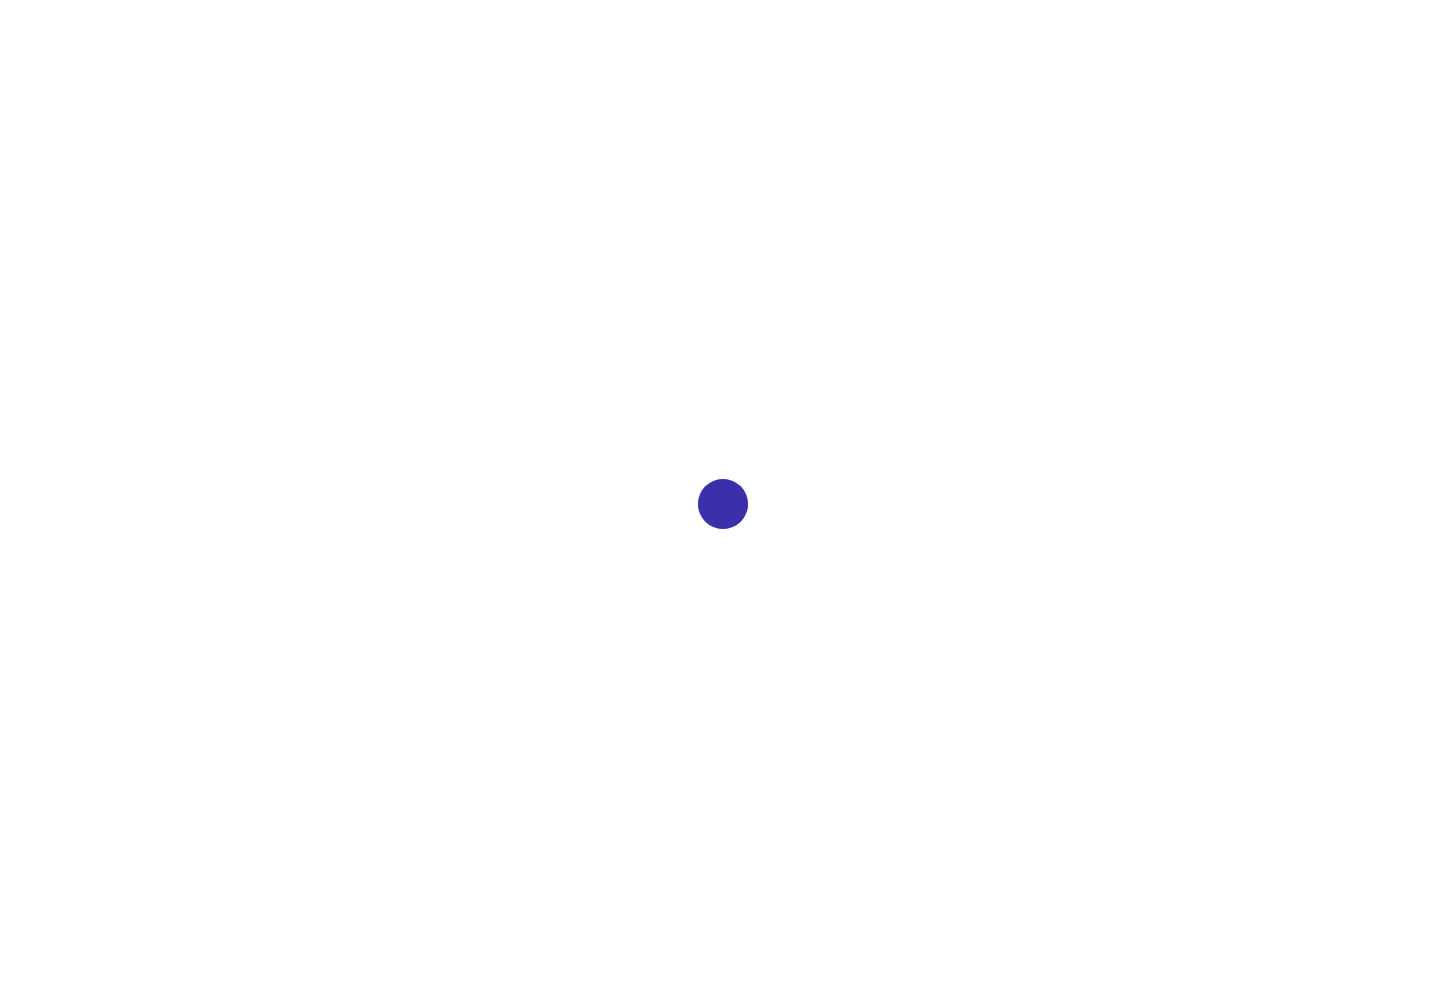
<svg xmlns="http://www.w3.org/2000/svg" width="1444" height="1007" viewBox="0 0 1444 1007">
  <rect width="100%" height="100%" fill="rgb(255,255,255)"/>
  <circle cx="723" cy="504" r="25" fill="rgb(115,107,194)"/>
  <circle cx="723" cy="504" r="25" fill="rgba(21,9,154,0.6)"/>
</svg>
